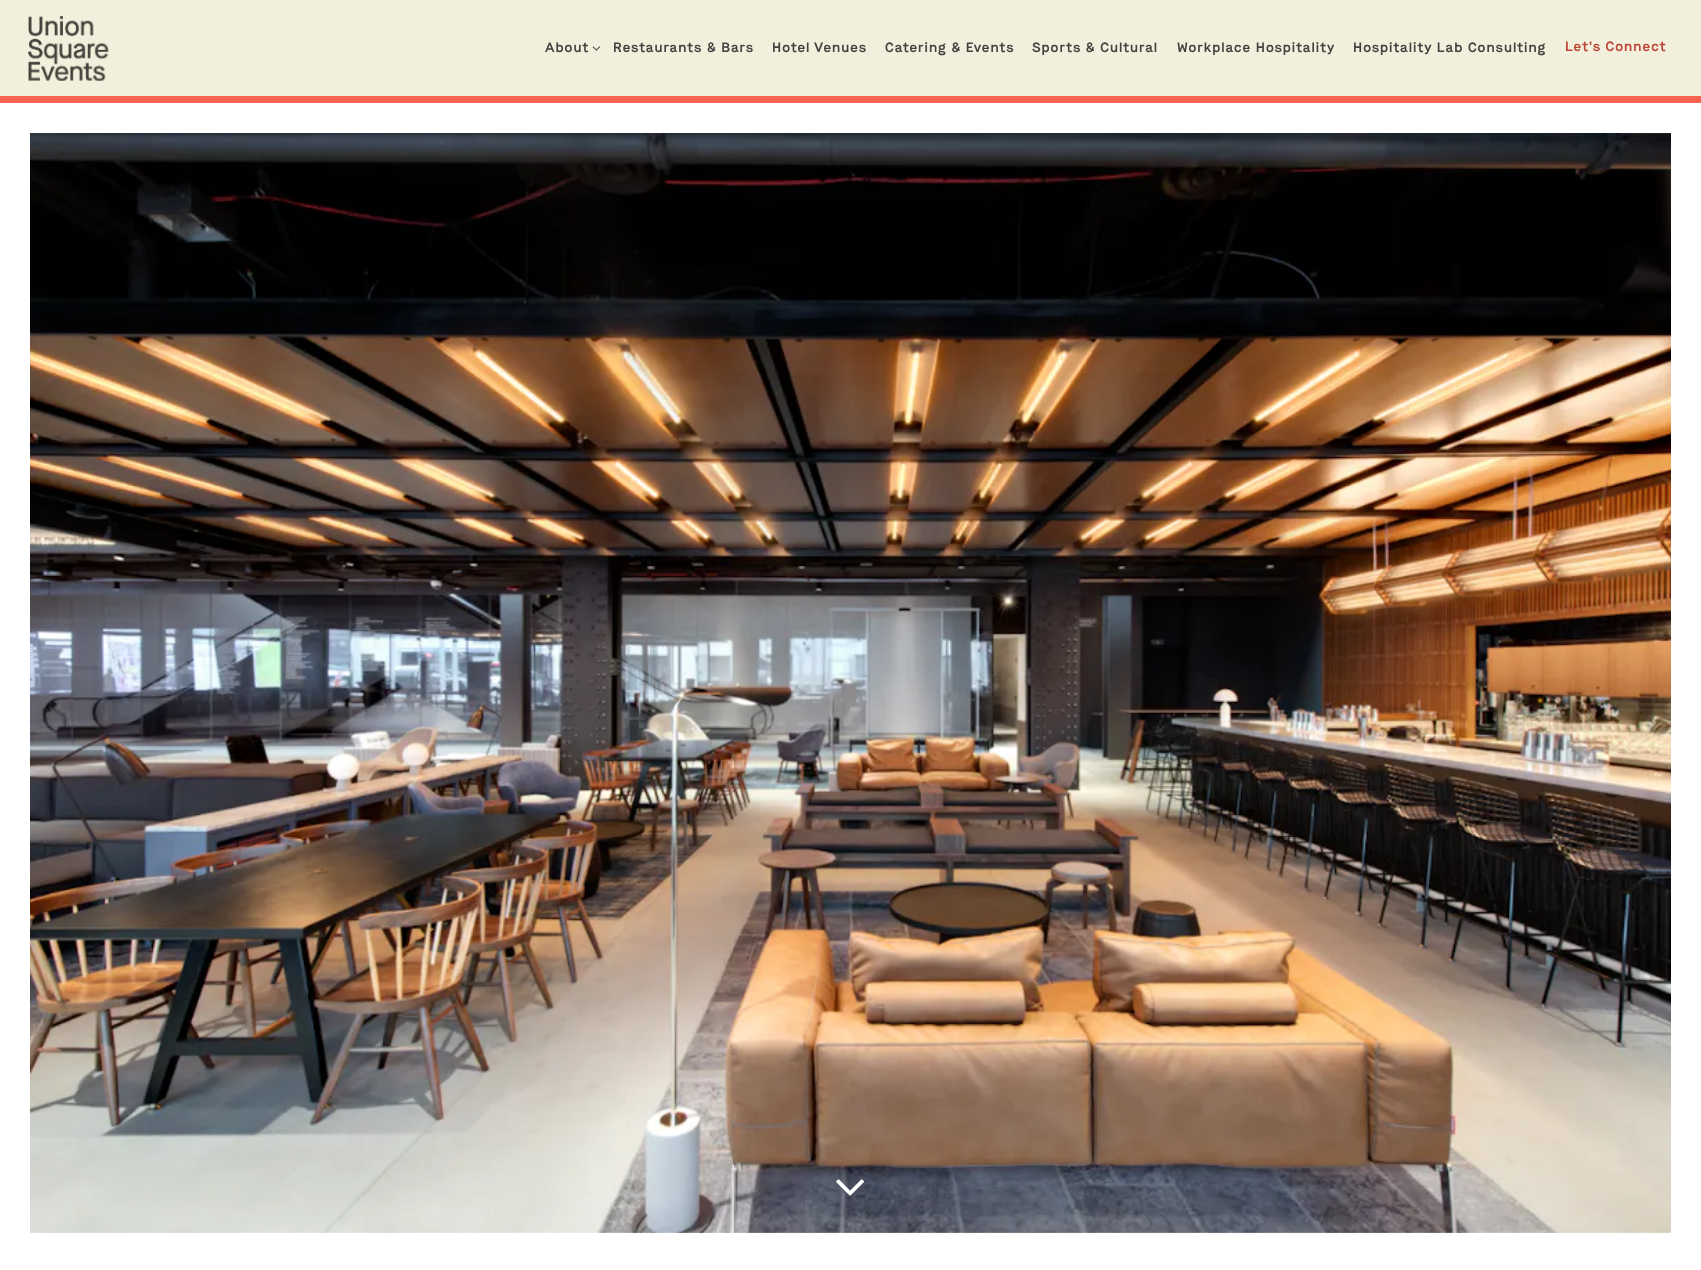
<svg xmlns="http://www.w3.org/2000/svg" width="1701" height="1270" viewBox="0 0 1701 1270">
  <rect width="100%" height="100%" fill="rgb(255,255,255)"/>
  <rect x="0" y="0" width="1701" height="96" fill="rgb(242,239,220)"/>
  <rect x="0" y="96" width="1701" height="7" fill="rgb(247,99,79)"/>
  <image x="28" y="16" width="81" height="65" href="pic1.png"/>
  <text x="545" y="52" font-family="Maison" font-size="13.5" font-weight="600" letter-spacing="1" fill="rgb(68,66,64)">About</text>
  <image x="592" y="46" width="8" height="5" href="pic2.png"/>
  <g font-family="Maison" font-size="13.5" font-weight="600" letter-spacing="1" fill="rgb(68,66,64)">
    <text x="613" y="52">Restaurants &amp; Bars</text>
    <text x="772" y="52">Hotel Venues</text>
    <text x="885" y="52">Catering &amp; Events</text>
    <text x="1032" y="52">Sports &amp; Cultural</text>
    <text x="1177" y="52">Workplace Hospitality</text>
    <text x="1353" y="52">Hospitality Lab Consulting</text>
  </g>
  <text x="1565" y="51" font-family="Maison" font-size="13.5" font-weight="600" letter-spacing="1" fill="rgb(189,67,51)">Let's Connect</text>
  <image x="30" y="133" width="1641" height="1100" href="pic3.png"/>
  <image x="836" y="1179" width="28" height="17" href="pic4.png"/>
</svg>
